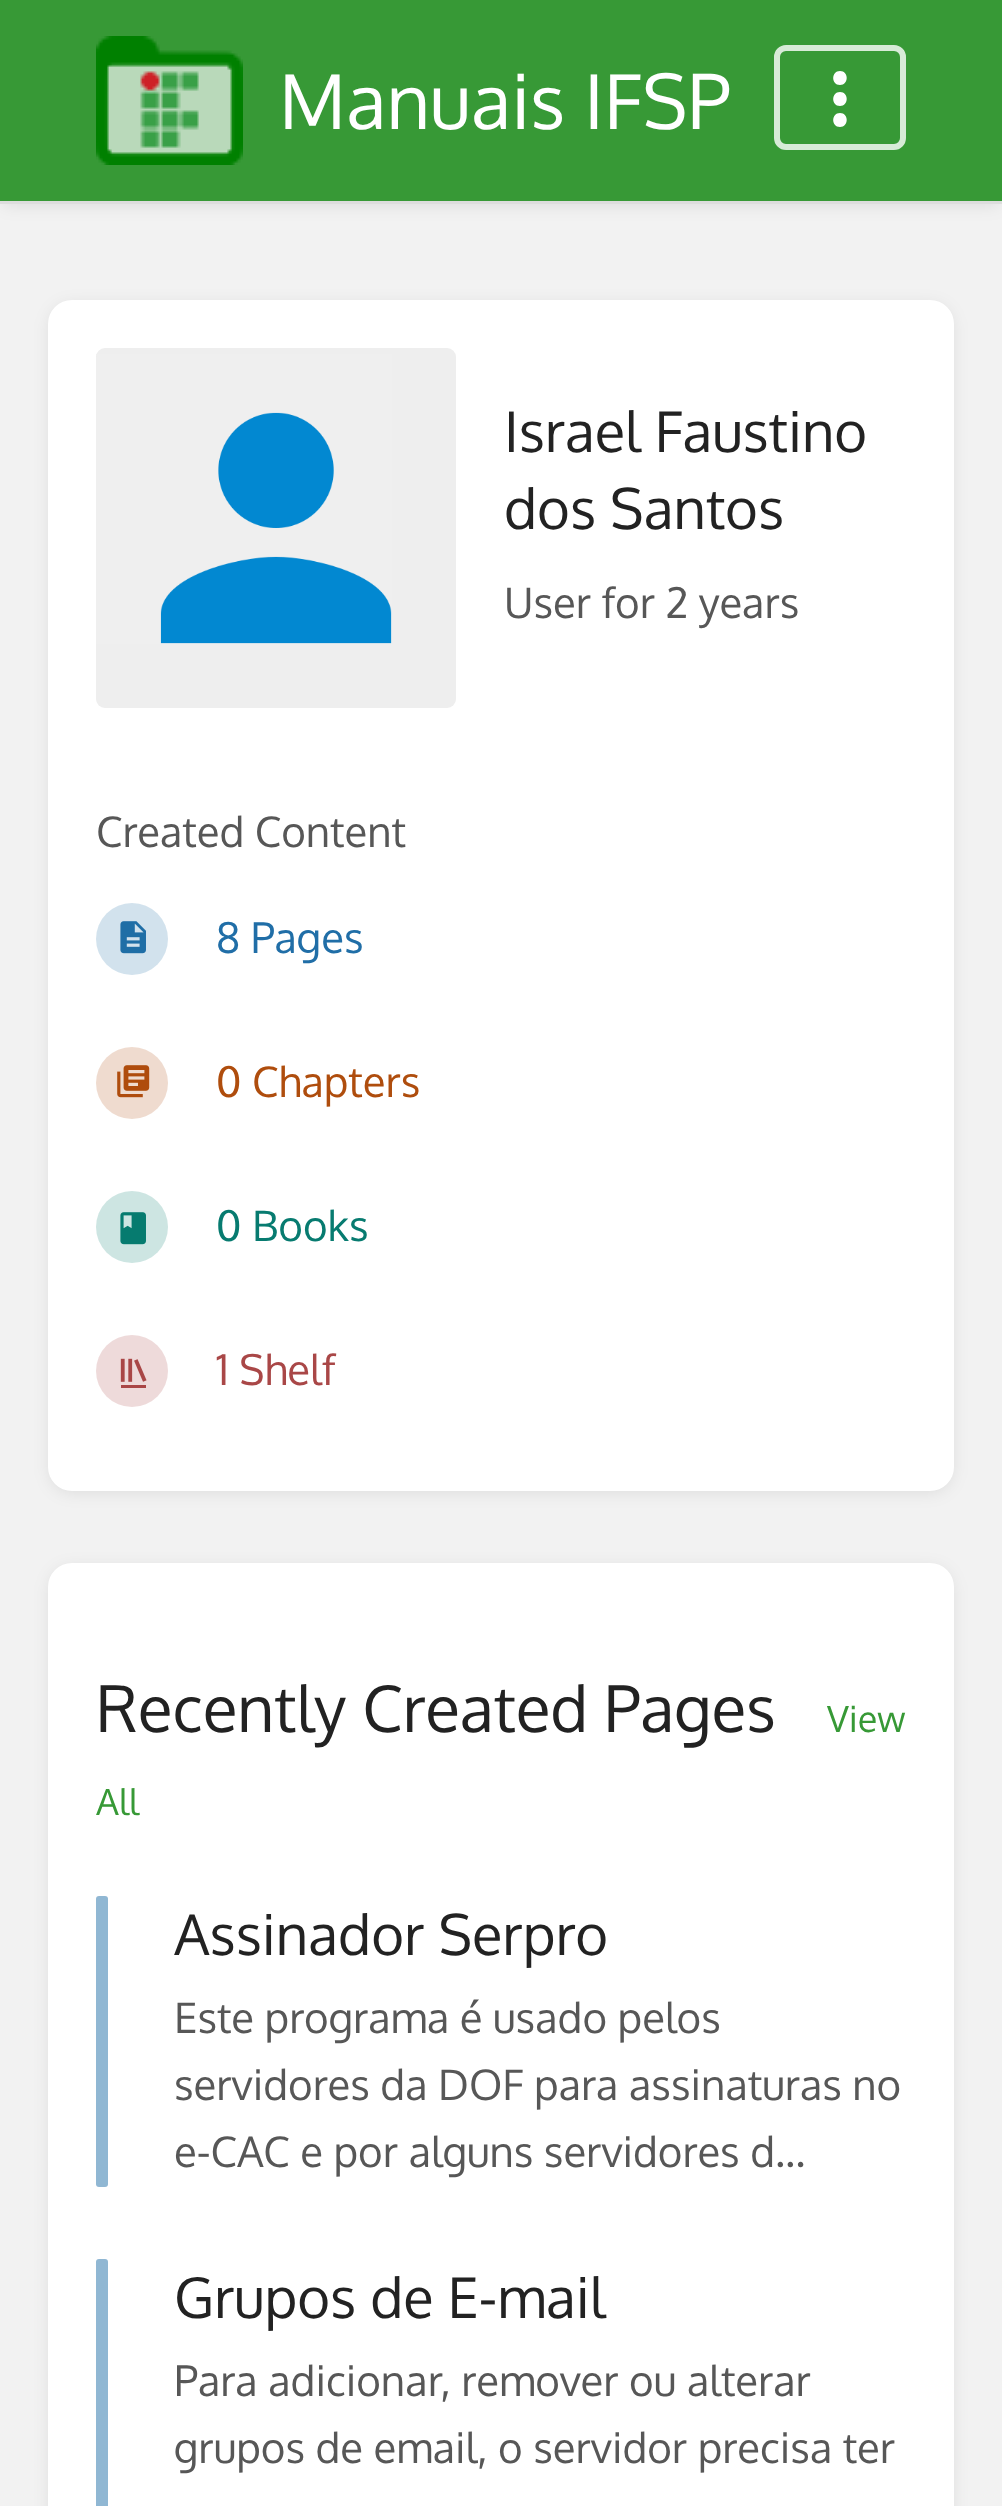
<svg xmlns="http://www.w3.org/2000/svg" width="1002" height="2506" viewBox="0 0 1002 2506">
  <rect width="100%" height="100%" fill="rgb(242,242,242)"/>
  <rect x="3" y="6" width="996" height="198" fill="rgba(0,0,0,0.1)" filter="blur(9px)"/>
  <rect x="0" y="0" width="1002" height="201" fill="rgb(55,153,54)"/>
  <rect x="0" y="201" width="1002" height="3" fill="rgb(221,221,221)"/>
  <image x="96" y="36" width="147" height="129" href="pic1.png"/>
  <text x="279" y="129" font-family="Oxygen" font-size="75.5" fill="rgb(255,255,255)">Manuais IFSP</text>
  <rect x="777" y="48" width="126" height="99" rx="9" fill="none" stroke="rgb(215,235,215)" stroke-width="6"/>
  <path d="M840 85C849 85 849 71 840 71C831 71 831 85 840 85M840 92C831 92 831 106 840 106C849 106 849 92 840 92M840 113C831 113 831 127 840 127C849 127 849 113 840 113" fill="rgb(255,255,255)"/>
  <rect x="51" y="306" width="900" height="1185" rx="21" fill="rgba(0,0,0,0.1)" filter="blur(9px)"/>
  <rect x="48" y="300" width="906" height="1191" rx="24" fill="rgb(255,255,255)"/>
  <rect x="96" y="348" width="360" height="360" rx="9" fill="rgb(238,238,238)"/>
  <image x="96" y="354" width="296" height="290" href="pic2.png"/>
  <g font-family="Oxygen" font-size="56" fill="rgb(34,34,34)">
    <text>
      <tspan x="504" y="452">Israel Faustino</tspan>
      <tspan x="504" y="529">dos Santos</tspan>
    </text>
  </g>
  <g font-family="Oxygen" font-size="42" fill="rgb(87,87,87)">
    <text x="504" y="618">User for 2 years</text>
    <text x="96" y="847">Created Content</text>
  </g>
  <image x="120" y="921" width="26" height="33" href="pic3.png"/>
  <circle cx="132" cy="939" r="36" fill="rgba(32,110,167,0.2)"/>
  <text x="216" y="953" font-family="Oxygen" font-size="42" fill="rgb(32,110,167)">8 Pages</text>
  <image x="117" y="1065" width="33" height="33" href="pic4.png"/>
  <circle cx="132" cy="1083" r="36" fill="rgba(175,77,13,0.2)"/>
  <text x="216" y="1097" font-family="Oxygen" font-size="42" fill="rgb(175,77,13)">0 Chapters</text>
  <image x="120" y="1212" width="26" height="33" href="pic5.png"/>
  <circle cx="132" cy="1227" r="36" fill="rgba(7,123,112,0.2)"/>
  <text x="216" y="1241" font-family="Oxygen" font-size="42" fill="rgb(7,123,112)">0 Books</text>
  <image x="120" y="1358" width="27" height="30" href="pic6.png"/>
  <circle cx="132" cy="1371" r="36" fill="rgba(169,71,71,0.2)"/>
  <text x="216" y="1385" font-family="Oxygen" font-size="42" fill="rgb(169,71,71)">1 Shelf</text>
  <rect x="51" y="1569" width="900" height="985" rx="21" fill="rgba(0,0,0,0.1)" filter="blur(9px)"/>
  <rect x="48" y="1563" width="906" height="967" rx="24" fill="rgb(255,255,255)"/>
  <text x="96" y="1732" font-family="Oxygen" font-size="64" fill="rgb(34,34,34)">Recently Created Pages</text>
  <g font-family="Oxygen" font-size="36" fill="rgb(55,153,54)">
    <text x="827" y="1732">View</text>
    <text x="96" y="1815">All</text>
  </g>
  <rect x="96" y="1896" width="12" height="291" rx="3" fill="rgb(144,183,211)"/>
  <text x="174" y="1955" font-family="Oxygen" font-size="56" fill="rgb(34,34,34)">Assinador Serpro</text>
  <g font-family="Oxygen" font-size="42" fill="rgb(87,87,87)">
    <text>
      <tspan x="174" y="2033">Este programa é usado pelos</tspan>
      <tspan x="174" y="2100">servidores da DOF para assinaturas no</tspan>
      <tspan x="174" y="2167">e-CAC e por alguns servidores d...</tspan>
    </text>
  </g>
  <rect x="96" y="2259" width="12" height="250" rx="3" fill="rgb(144,183,211)"/>
  <text x="174" y="2318" font-family="Oxygen" font-size="56" fill="rgb(34,34,34)">Grupos de E-mail</text>
  <g font-family="Oxygen" font-size="42" fill="rgb(87,87,87)">
    <text>
      <tspan x="174" y="2396">Para adicionar, remover ou alterar</tspan>
      <tspan x="174" y="2463">grupos de email, o servidor precisa ter</tspan>
    </text>
  </g>
</svg>
